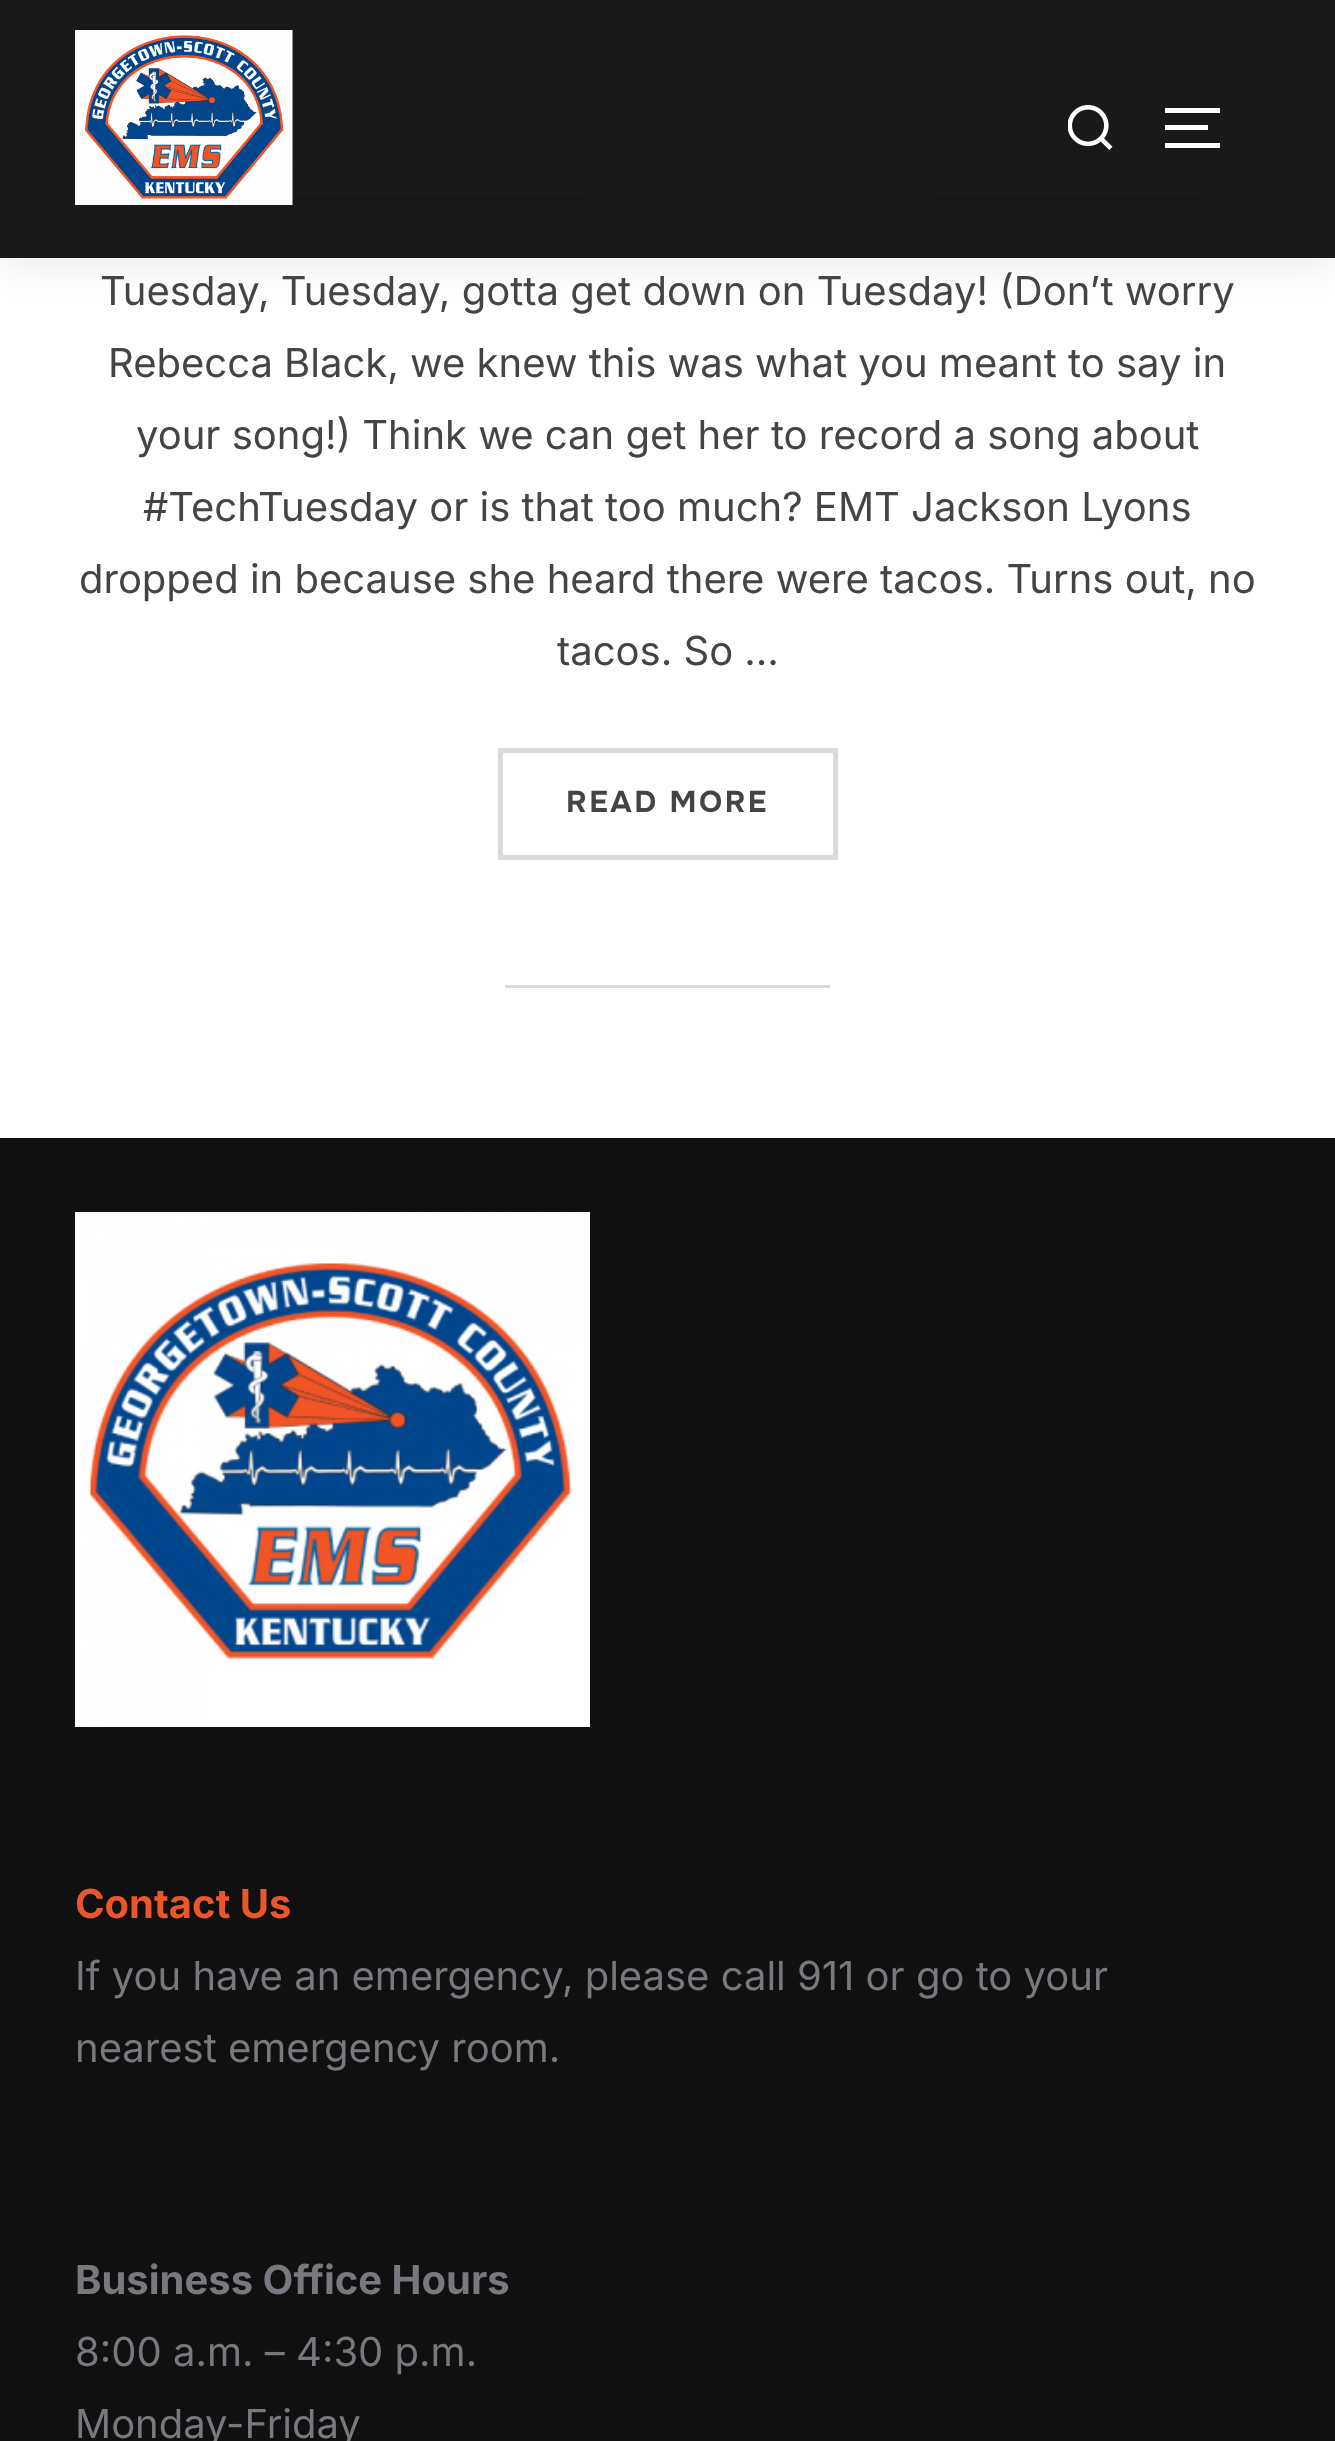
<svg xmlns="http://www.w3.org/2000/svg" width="1335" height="2441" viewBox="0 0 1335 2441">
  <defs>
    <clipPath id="clip1"><path d="M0 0H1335V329H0ZM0 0H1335V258H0Z" clip-rule="evenodd"/></clipPath>
  </defs>
  <rect width="100%" height="100%" fill="rgb(255,255,255)"/>
  <rect x="292" y="198" width="291" height="3" fill="rgb(219,219,219)"/>
  <rect x="935" y="198" width="270" height="3" fill="rgb(219,219,219)"/>
  <g clip-path="url(#clip1)">
    <rect x="-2" y="-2" width="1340" height="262" fill="rgba(0,0,0,0.1)" filter="blur(22.5px)"/>
  </g>
  <rect x="0" y="0" width="1335" height="258" fill="rgba(0,0,0,0.9)"/>
  <image x="75" y="30" width="218" height="175" href="pic1.png"/>
  <image x="1068" y="105" width="45" height="45" href="pic2.png"/>
  <rect x="1165" y="108" width="55" height="5" fill="rgb(255,255,255)"/>
  <rect x="1165" y="125" width="43" height="5" fill="rgb(255,255,255)"/>
  <rect x="1165" y="143" width="55" height="5" fill="rgb(255,255,255)"/>
  <g font-family="Inter" font-size="40" fill="rgb(68,68,68)">
    <text x="100" y="305">Tuesday, Tuesday, gotta get down on Tuesday! (Don’t worry</text>
    <text x="108" y="377">Rebecca Black, we knew this was what you meant to say in</text>
    <text x="136" y="449">your song!) Think we can get her to record a song about</text>
    <text x="143" y="521">#TechTuesday or is that too much? EMT Jackson Lyons</text>
    <text x="79" y="593">dropped in because she heard there were tacos. Turns out, no</text>
    <text x="557" y="665">tacos. So …</text>
  </g>
  <rect x="500.5" y="750.5" width="335" height="107" fill="none" stroke="rgb(219,219,219)" stroke-width="5"/>
  <text x="566" y="812" font-family="Onest" font-size="30" font-weight="bold" letter-spacing="2.5" fill="rgb(68,68,68)">READ MORE</text>
  <rect x="505" y="985" width="325" height="3" fill="rgb(219,219,219)"/>
  <rect x="0" y="1138" width="1335" height="1303" fill="rgb(16,16,16)"/>
  <image x="75" y="1212" width="515" height="515" href="pic3.png"/>
  <text x="75" y="1918" font-family="Inter" font-size="40" font-weight="bold" fill="rgb(236,86,43)">Contact Us</text>
  <g font-family="Inter" font-size="40" fill="rgb(120,120,127)">
    <text>
      <tspan x="75" y="1990">If you have an emergency, please call 911 or go to your</tspan>
      <tspan x="75" y="2062">nearest emergency room.</tspan>
    </text>
  </g>
  <text x="75" y="2294" font-family="Inter" font-size="40" font-weight="bold" fill="rgb(120,120,127)">Business Office Hours</text>
  <g font-family="Inter" font-size="40" fill="rgb(120,120,127)">
    <text>
      <tspan x="75" y="2366">8:00 a.m. – 4:30 p.m.</tspan>
      <tspan x="75" y="2438">Monday-Friday</tspan>
    </text>
  </g>
</svg>
